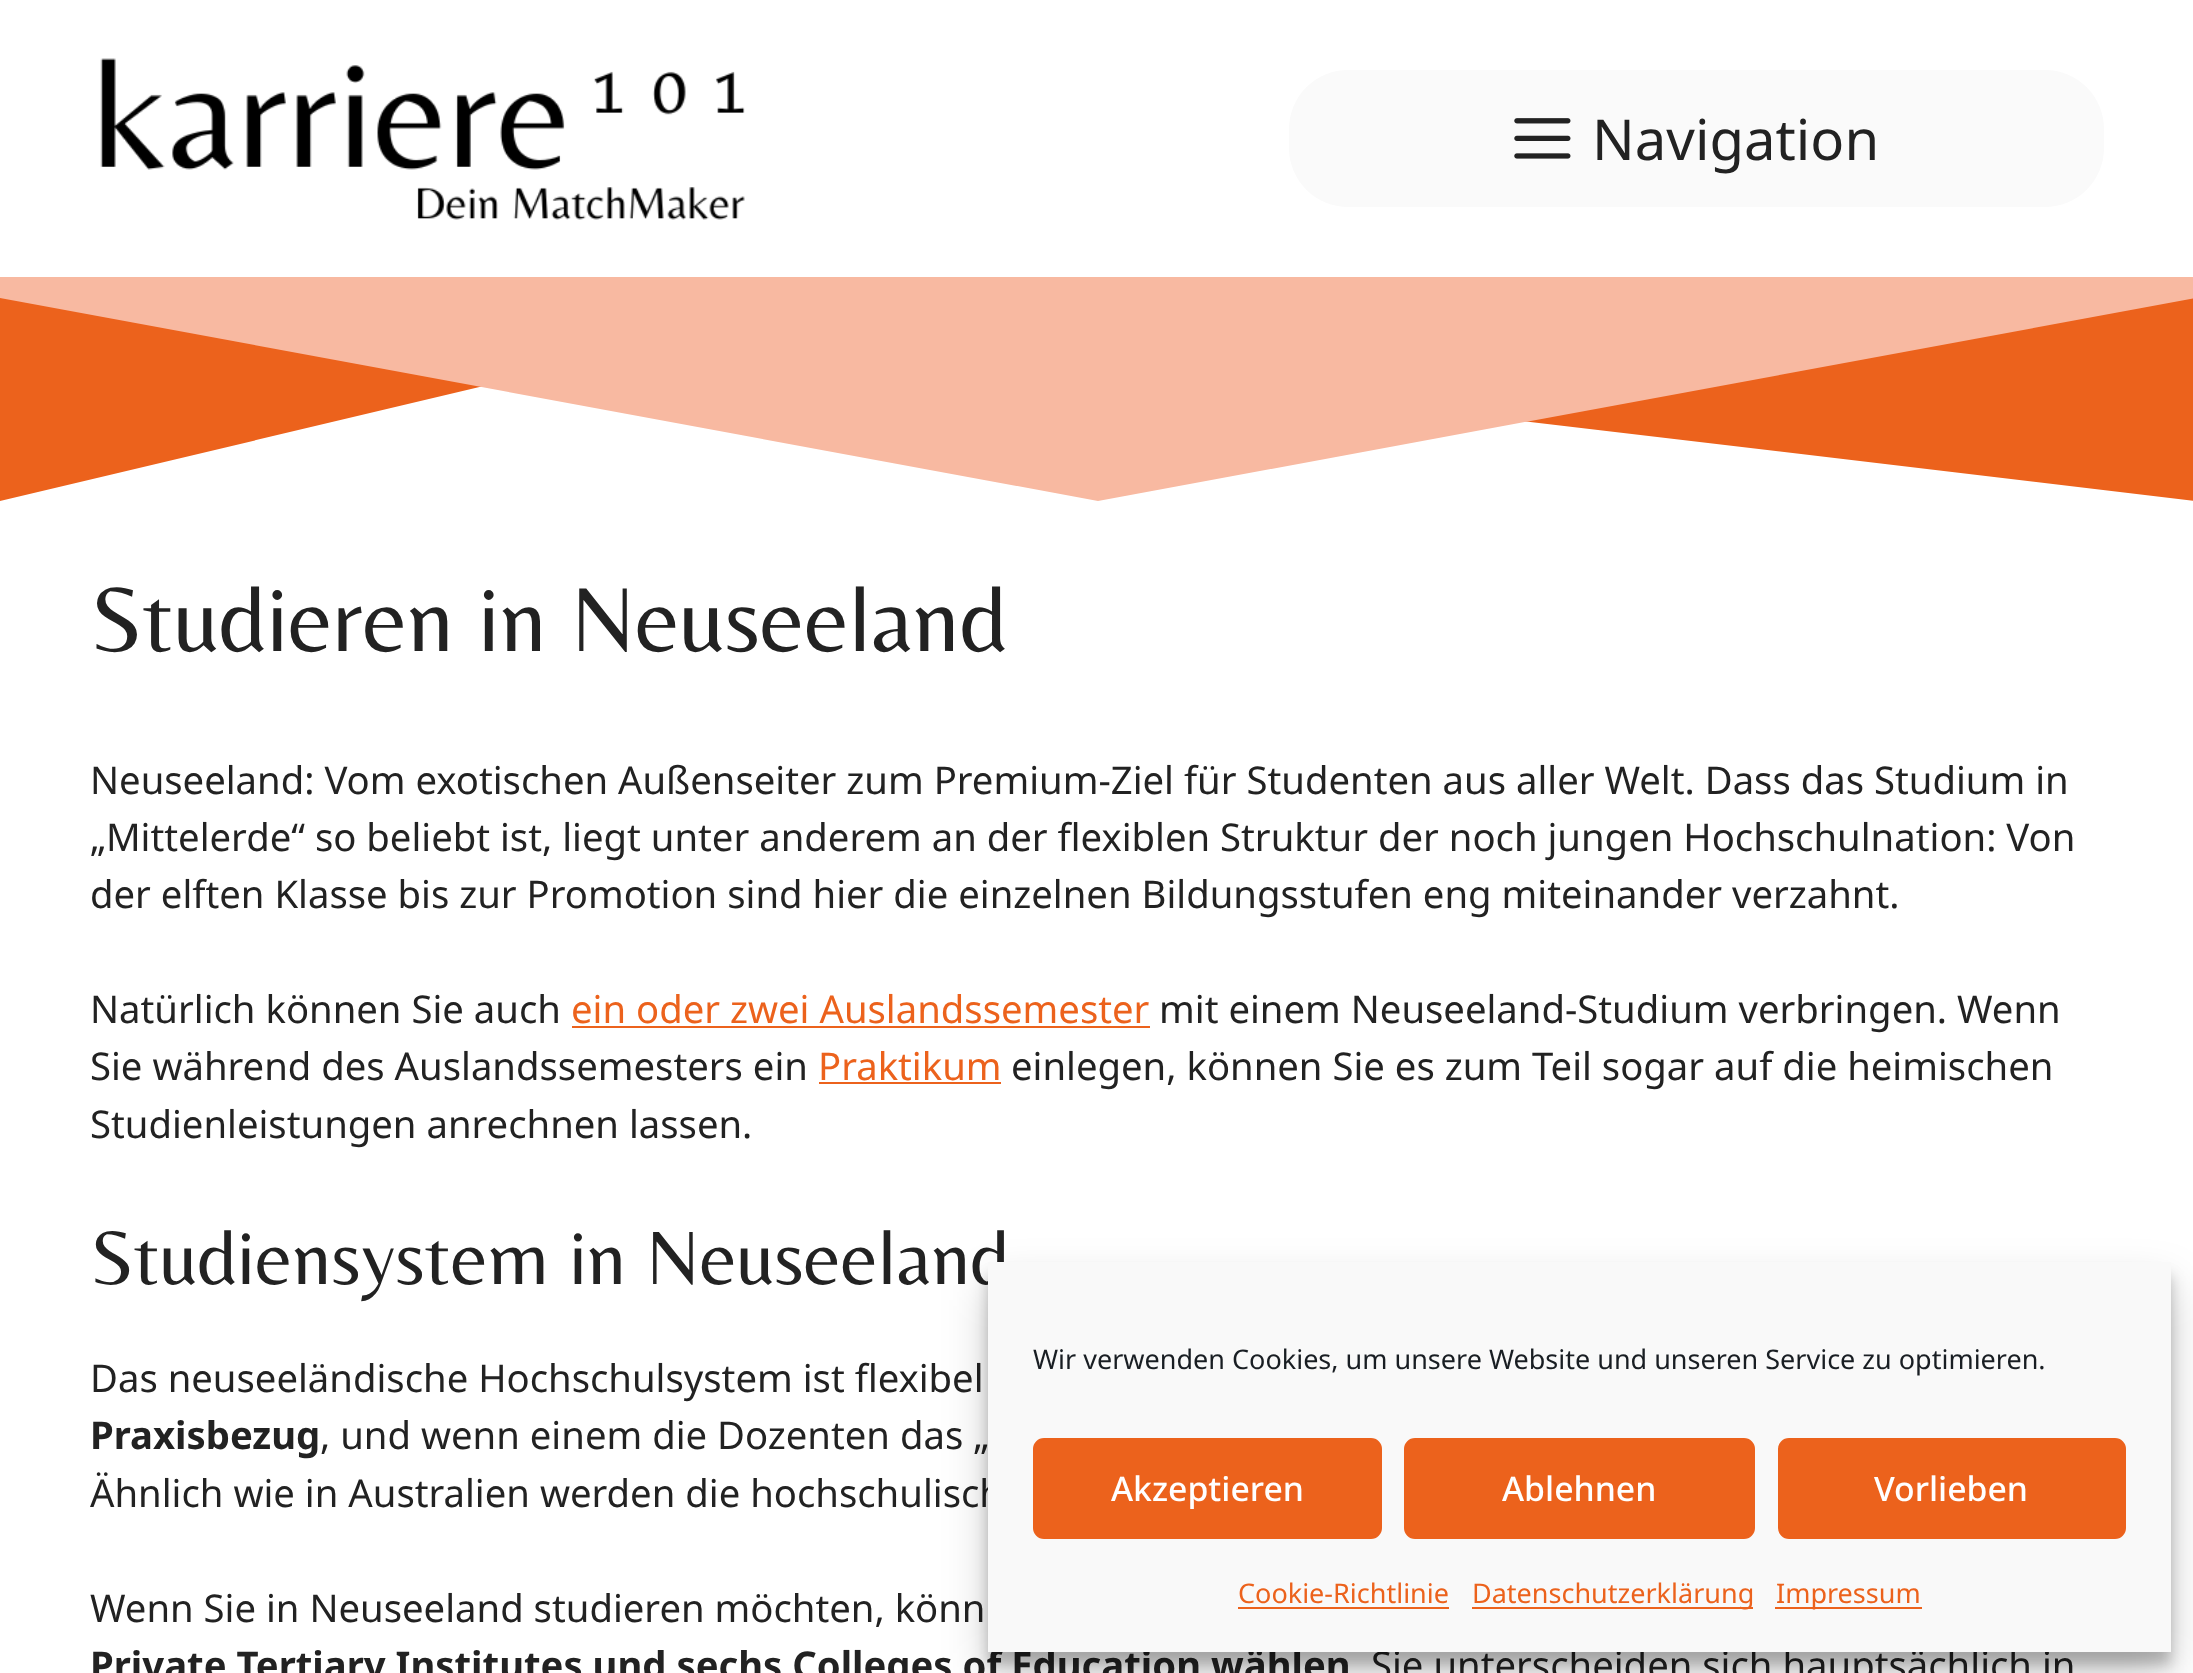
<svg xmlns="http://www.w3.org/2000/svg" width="2193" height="1673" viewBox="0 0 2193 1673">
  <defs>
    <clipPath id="clip1"><rect x="0" y="277" width="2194" height="225"/></clipPath>
  </defs>
  <rect width="100%" height="100%" fill="rgb(255,255,255)"/>
  <image x="100" y="58" width="645" height="162" href="pic1.png"/>
  <rect x="1289" y="70" width="815" height="137" rx="59" fill="rgb(250,250,250)"/>
  <image x="1514" y="118" width="57" height="41" href="pic2.png"/>
  <text x="1592" y="160" font-family="Noto Sans" font-size="56.25" fill="rgb(34,34,34)">Navigation</text>
  <g clip-path="url(#clip1)">
    <path d="M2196 276H0V501L732 327L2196 501Z" fill="rgb(236,98,28)"/>
    <path d="M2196 298L1098 501L0 298V276H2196Z" fill="rgb(248,185,161)"/>
  </g>
  <text x="90" y="651" font-family="Belleza" font-size="94.5" fill="rgb(34,34,34)">Studieren in Neuseeland</text>
  <g font-family="Noto Sans" font-size="38.25" fill="rgb(34,34,34)">
    <text>
      <tspan x="90" y="794">Neuseeland: Vom exotischen Außenseiter zum Premium-Ziel für Studenten aus aller Welt. Dass das Studium in</tspan>
      <tspan x="90" y="851">„Mittelerde“ so beliebt ist, liegt unter anderem an der flexiblen Struktur der noch jungen Hochschulnation: Von</tspan>
      <tspan x="90" y="908">der elften Klasse bis zur Promotion sind hier die einzelnen Bildungsstufen eng miteinander verzahnt.</tspan>
    </text>
    <text x="90" y="1023">Natürlich können Sie auch</text>
  </g>
  <text x="571" y="1023" font-family="Noto Sans" font-size="38.25" fill="rgb(236,98,28)">ein oder zwei Auslandssemester</text>
  <rect x="572" y="1026" width="578" height="2" fill="rgb(236,98,28)"/>
  <g font-family="Noto Sans" font-size="38.25" fill="rgb(34,34,34)">
    <text x="1159" y="1023">mit einem Neuseeland-Studium verbringen. Wenn</text>
    <text x="90" y="1080">Sie während des Auslandssemesters ein</text>
  </g>
  <text x="818" y="1080" font-family="Noto Sans" font-size="38.25" fill="rgb(236,98,28)">Praktikum</text>
  <rect x="819" y="1082" width="182" height="2" fill="rgb(236,98,28)"/>
  <g font-family="Noto Sans" font-size="38.25" fill="rgb(34,34,34)">
    <text x="1011" y="1080">einlegen, können Sie es zum Teil sogar auf die heimischen</text>
    <text x="90" y="1138">Studienleistungen anrechnen lassen.</text>
  </g>
  <text x="90" y="1284" font-family="Belleza" font-size="78.75" fill="rgb(34,34,34)">Studiensystem in Neuseeland</text>
  <text x="90" y="1392" font-family="Noto Sans" font-size="38.25" fill="rgb(34,34,34)">Das neuseeländische Hochschulsystem ist flexibel</text>
  <text x="90" y="1449" font-family="Noto Sans" font-size="38.25" font-weight="bold" fill="rgb(34,34,34)">Praxisbezug</text>
  <g font-family="Noto Sans" font-size="38.25" fill="rgb(34,34,34)">
    <text x="320" y="1449">, und wenn einem die Dozenten das „</text>
    <text x="90" y="1507">Ähnlich wie in Australien werden die hochschulisch</text>
    <text x="90" y="1622">Wenn Sie in Neuseeland studieren möchten, könn</text>
  </g>
  <text x="90" y="1679" font-family="Noto Sans" font-size="38.25" font-weight="bold" fill="rgb(34,34,34)">Private Tertiary Institutes und sechs Colleges of Education wählen</text>
  <text x="1371" y="1679" font-family="Noto Sans" font-size="38.25" fill="rgb(34,34,34)">Sie unterscheiden sich hauptsächlich in</text>
  <rect x="988" y="1276" width="1183" height="389" fill="rgba(0,0,0,0.23)" filter="blur(7px)"/>
  <rect x="988" y="1285" width="1183" height="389" fill="rgba(0,0,0,0.19)" filter="blur(22.5px)"/>
  <rect x="988" y="1262" width="1183" height="390" fill="rgb(249,249,249)"/>
  <text x="1033" y="1369" font-family="Noto Sans" font-size="27" fill="rgb(25,30,35)">Wir verwenden Cookies, um unsere Website und unseren Service zu optimieren.</text>
  <rect x="1034" y="1439" width="347" height="99" rx="10" fill="rgb(236,98,28)" stroke="rgb(236,98,28)" stroke-width="2"/>
  <text x="1111" y="1501" font-family="Noto Sans" font-size="33.75" font-weight="500" fill="rgb(255,255,255)">Akzeptieren</text>
  <rect x="1405" y="1439" width="349" height="99" rx="10" fill="rgb(236,98,28)" stroke="rgb(236,98,28)" stroke-width="2"/>
  <text x="1502" y="1501" font-family="Noto Sans" font-size="33.75" font-weight="500" fill="rgb(255,255,255)">Ablehnen</text>
  <rect x="1779" y="1439" width="346" height="99" rx="10" fill="rgb(236,98,28)" stroke="rgb(236,98,28)" stroke-width="2"/>
  <text x="1874" y="1501" font-family="Noto Sans" font-size="33.75" font-weight="500" fill="rgb(255,255,255)">Vorlieben</text>
  <text x="1238" y="1603" font-family="Noto Sans" font-size="27" fill="rgb(236,98,28)">Cookie-Richtlinie</text>
  <rect x="1238" y="1607" width="211" height="2" fill="rgb(236,98,28)"/>
  <rect x="1472" y="1607" width="281" height="2" fill="rgb(236,98,28)"/>
  <text x="1472" y="1603" font-family="Noto Sans" font-size="27" fill="rgb(236,98,28)">Datenschutzerklärung</text>
  <rect x="1775" y="1607" width="147" height="2" fill="rgb(236,98,28)"/>
  <text x="1776" y="1603" font-family="Noto Sans" font-size="27" fill="rgb(236,98,28)">Impressum</text>
</svg>
